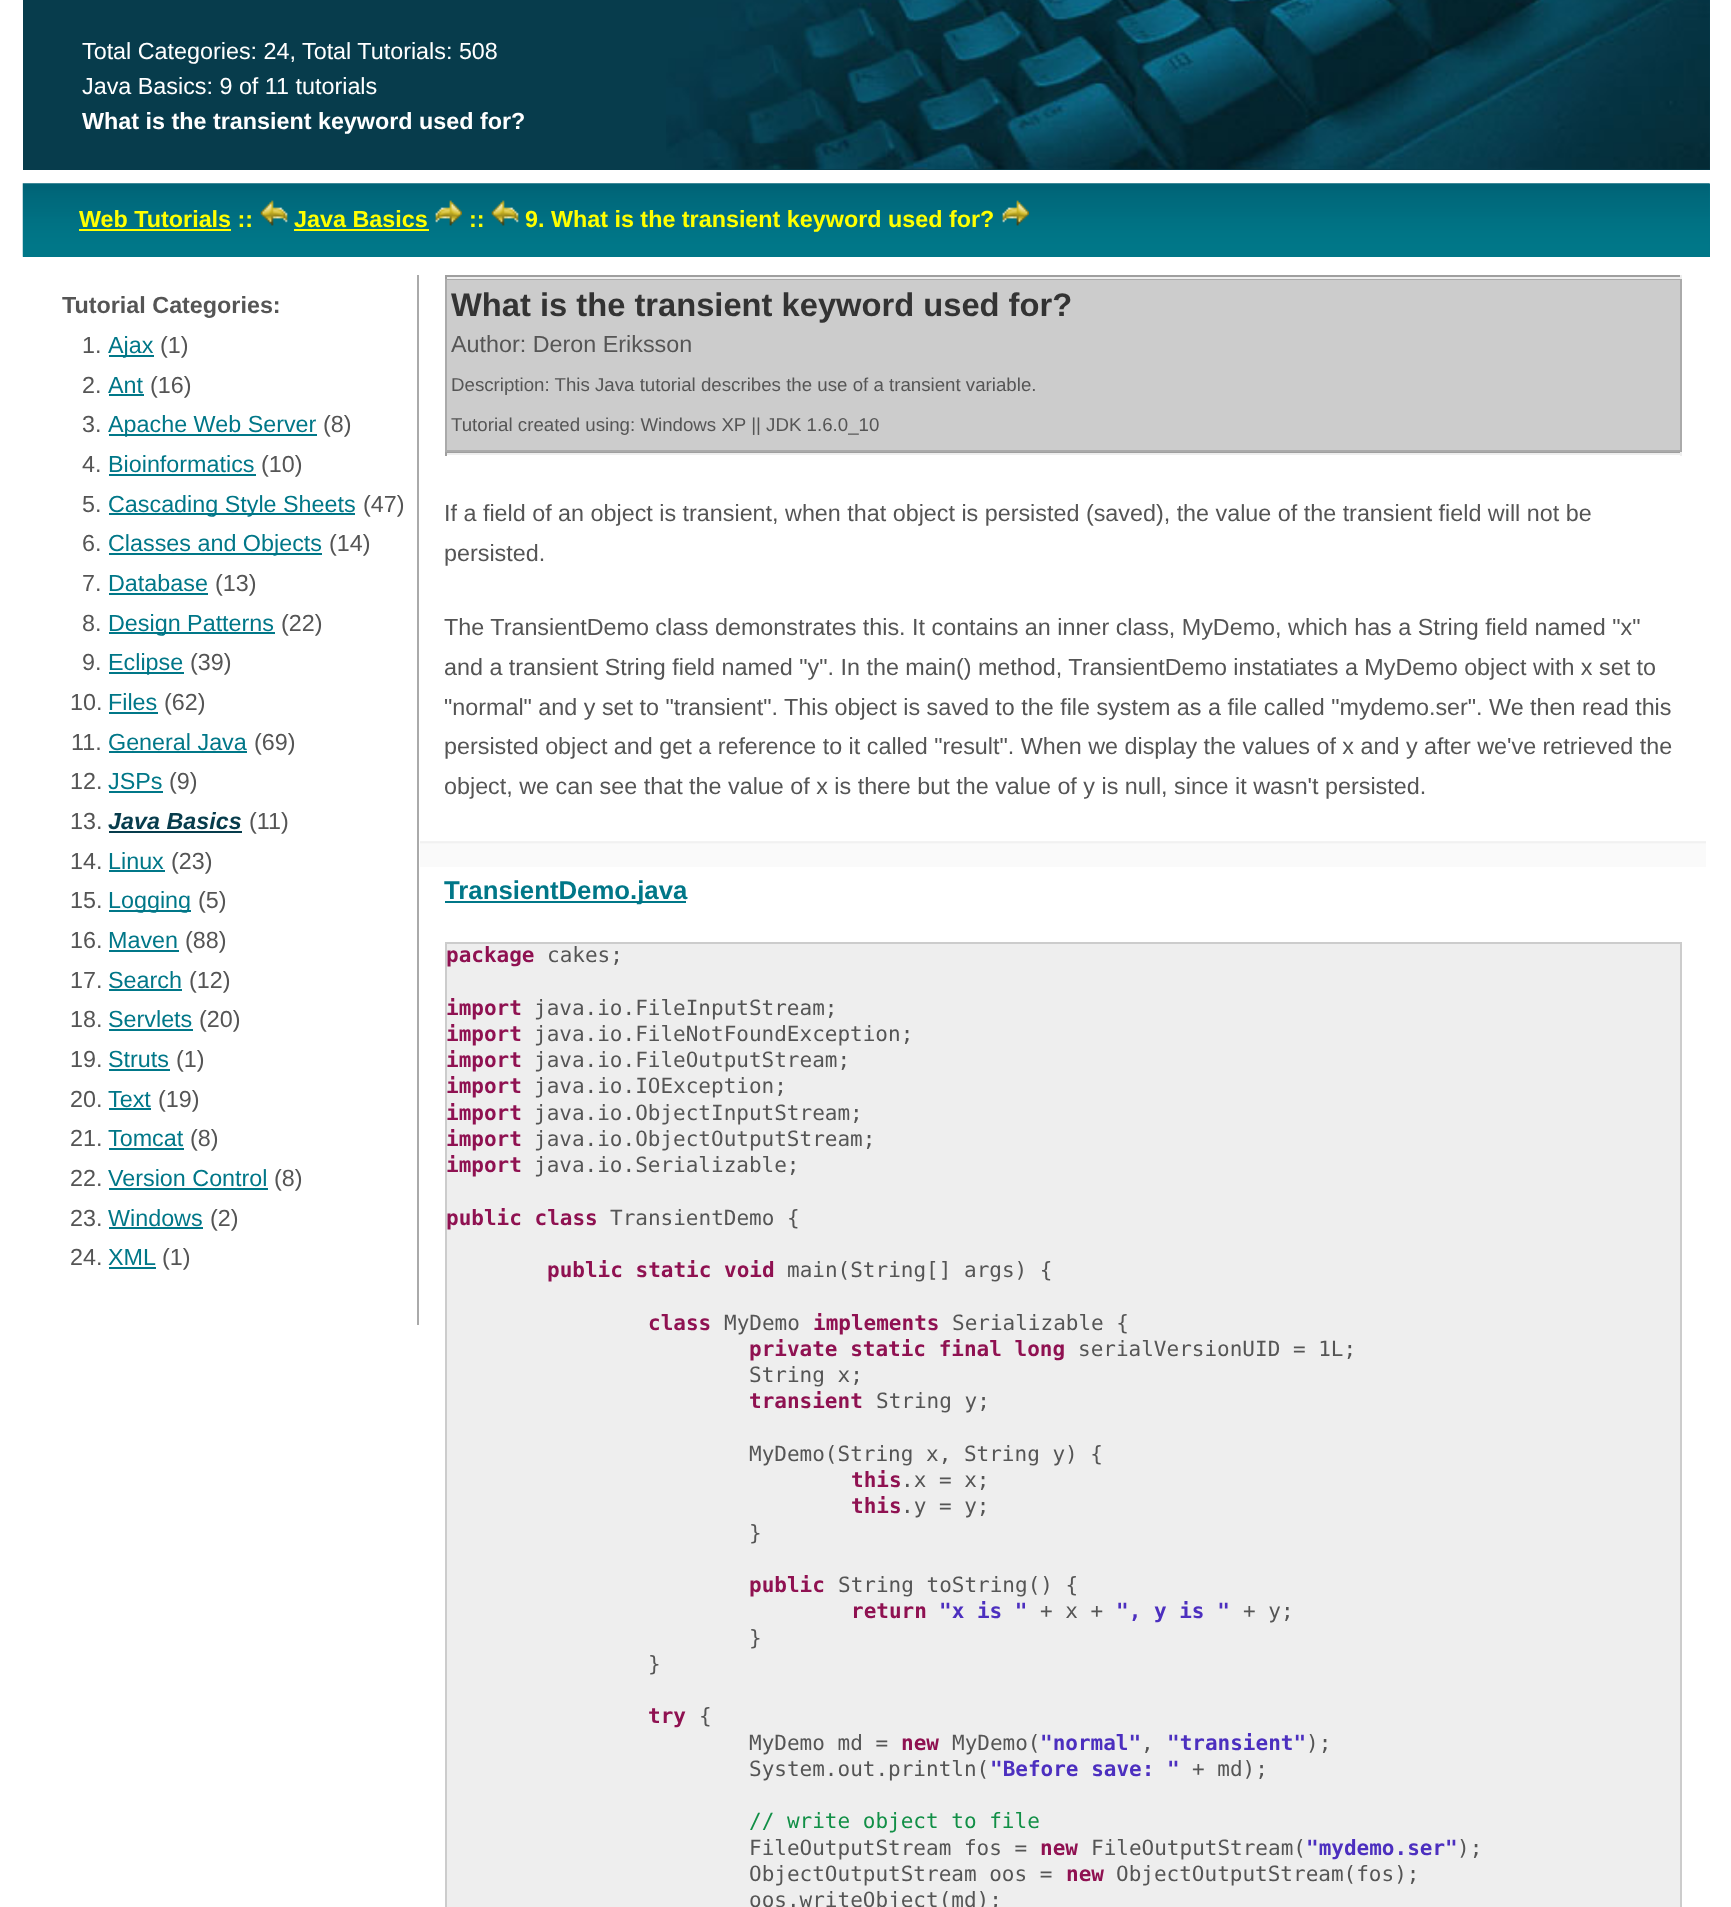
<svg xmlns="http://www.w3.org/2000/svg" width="1731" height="1907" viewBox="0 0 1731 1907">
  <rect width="100%" height="100%" fill="rgb(255,255,255)"/>
  <rect x="23" y="0" width="1687" height="170" fill="rgb(7,60,76)"/>
  <image x="666" y="0" width="1044" height="170" href="pic1.png"/>
  <g font-family="Liberation Sans" font-size="23.33" fill="rgb(255,255,255)">
    <text x="82" y="59">Total Categories: 24,</text>
    <text x="302" y="59">Total Tutorials: 508</text>
    <text x="82" y="94">Java Basics: 9 of 11 tutorials</text>
  </g>
  <text x="82" y="129" font-family="Liberation Sans" font-size="23.33" font-weight="bold" fill="rgb(255,255,255)">What is the transient keyword used for?</text>
  <rect x="23" y="184" width="1687" height="73" fill="rgb(0,119,136)"/>
  <image x="22" y="183" width="1688" height="74" href="pic2.png"/>
  <text x="79" y="227" font-family="Liberation Sans" font-size="23.33" font-weight="bold" fill="rgb(255,255,0)">Web Tutorials ::</text>
  <rect x="79" y="229" width="152" height="2" fill="rgb(255,255,0)"/>
  <image x="260" y="200" width="28" height="26" href="pic3.png"/>
  <text x="294" y="227" font-family="Liberation Sans" font-size="23.33" font-weight="bold" fill="rgb(255,255,0)">Java Basics</text>
  <rect x="294" y="229" width="135" height="2" fill="rgb(255,255,0)"/>
  <image x="435" y="200" width="27" height="26" href="pic4.png"/>
  <text x="469" y="227" font-family="Liberation Sans" font-size="23.33" font-weight="bold" fill="rgb(255,255,0)">::</text>
  <image x="491" y="200" width="28" height="26" href="pic3.png"/>
  <text x="525" y="227" font-family="Liberation Sans" font-size="23.33" font-weight="bold" fill="rgb(255,255,0)">9. What is the transient keyword used for?</text>
  <image x="1002" y="200" width="27" height="26" href="pic5.png"/>
  <rect x="417" y="275" width="2" height="1050" fill="rgb(170,170,170)"/>
  <text x="62" y="313" font-family="Liberation Sans" font-size="23.33" font-weight="bold" fill="rgb(85,85,85)">Tutorial Categories:</text>
  <text x="82" y="353" font-family="Liberation Sans" font-size="23.33" fill="rgb(85,85,85)">1.</text>
  <rect x="109" y="355" width="45" height="2" fill="rgb(0,119,136)"/>
  <text x="108" y="353" font-family="Liberation Sans" font-size="23.33" fill="rgb(0,119,136)">Ajax</text>
  <g font-family="Liberation Sans" font-size="23.33" fill="rgb(85,85,85)">
    <text x="160" y="353">(1)</text>
    <text x="82" y="393">2.</text>
  </g>
  <text x="108" y="393" font-family="Liberation Sans" font-size="23.33" fill="rgb(0,119,136)">Ant</text>
  <rect x="109" y="394" width="35" height="2" fill="rgb(0,119,136)"/>
  <g font-family="Liberation Sans" font-size="23.33" fill="rgb(85,85,85)">
    <text x="150" y="393">(16)</text>
    <text x="82" y="432">3.</text>
  </g>
  <rect x="109" y="434" width="208" height="2" fill="rgb(0,119,136)"/>
  <text x="108" y="432" font-family="Liberation Sans" font-size="23.33" fill="rgb(0,119,136)">Apache Web Server</text>
  <g font-family="Liberation Sans" font-size="23.33" fill="rgb(85,85,85)">
    <text x="323" y="432">(8)</text>
    <text x="82" y="472">4.</text>
  </g>
  <text x="108" y="472" font-family="Liberation Sans" font-size="23.33" fill="rgb(0,119,136)">Bioinformatics</text>
  <rect x="109" y="474" width="147" height="2" fill="rgb(0,119,136)"/>
  <g font-family="Liberation Sans" font-size="23.33" fill="rgb(85,85,85)">
    <text x="261" y="472">(10)</text>
    <text x="82" y="512">5.</text>
  </g>
  <rect x="109" y="513" width="246" height="2" fill="rgb(0,119,136)"/>
  <text x="108" y="512" font-family="Liberation Sans" font-size="23.33" fill="rgb(0,119,136)">Cascading Style Sheets</text>
  <g font-family="Liberation Sans" font-size="23.33" fill="rgb(85,85,85)">
    <text x="363" y="512">(47)</text>
    <text x="82" y="551">6.</text>
  </g>
  <rect x="109" y="553" width="213" height="2" fill="rgb(0,119,136)"/>
  <text x="108" y="551" font-family="Liberation Sans" font-size="23.33" fill="rgb(0,119,136)">Classes and Objects</text>
  <g font-family="Liberation Sans" font-size="23.33" fill="rgb(85,85,85)">
    <text x="329" y="551">(14)</text>
    <text x="82" y="591">7.</text>
  </g>
  <text x="108" y="591" font-family="Liberation Sans" font-size="23.33" fill="rgb(0,119,136)">Database</text>
  <rect x="109" y="593" width="99" height="2" fill="rgb(0,119,136)"/>
  <g font-family="Liberation Sans" font-size="23.33" fill="rgb(85,85,85)">
    <text x="215" y="591">(13)</text>
    <text x="82" y="631">8.</text>
  </g>
  <rect x="109" y="632" width="166" height="2" fill="rgb(0,119,136)"/>
  <text x="108" y="631" font-family="Liberation Sans" font-size="23.33" fill="rgb(0,119,136)">Design Patterns</text>
  <g font-family="Liberation Sans" font-size="23.33" fill="rgb(85,85,85)">
    <text x="281" y="631">(22)</text>
    <text x="82" y="670">9.</text>
  </g>
  <rect x="109" y="672" width="75" height="2" fill="rgb(0,119,136)"/>
  <text x="108" y="670" font-family="Liberation Sans" font-size="23.33" fill="rgb(0,119,136)">Eclipse</text>
  <g font-family="Liberation Sans" font-size="23.33" fill="rgb(85,85,85)">
    <text x="190" y="670">(39)</text>
    <text x="70" y="710">10.</text>
  </g>
  <text x="108" y="710" font-family="Liberation Sans" font-size="23.33" fill="rgb(0,119,136)">Files</text>
  <rect x="109" y="712" width="49" height="2" fill="rgb(0,119,136)"/>
  <g font-family="Liberation Sans" font-size="23.33" fill="rgb(85,85,85)">
    <text x="164" y="710">(62)</text>
    <text x="71" y="750">11.</text>
  </g>
  <text x="108" y="750" font-family="Liberation Sans" font-size="23.33" fill="rgb(0,119,136)">General Java</text>
  <rect x="109" y="751" width="138" height="2" fill="rgb(0,119,136)"/>
  <g font-family="Liberation Sans" font-size="23.33" fill="rgb(85,85,85)">
    <text x="254" y="750">(69)</text>
    <text x="70" y="789">12.</text>
  </g>
  <text x="108" y="789" font-family="Liberation Sans" font-size="23.33" fill="rgb(0,119,136)">JSPs</text>
  <rect x="109" y="791" width="54" height="2" fill="rgb(0,119,136)"/>
  <g font-family="Liberation Sans" font-size="23.33" fill="rgb(85,85,85)">
    <text x="169" y="789">(9)</text>
    <text x="70" y="829">13.</text>
  </g>
  <text x="108" y="829" font-family="Liberation Sans" font-size="23.33" font-weight="bold" font-style="italic" fill="rgb(7,60,76)">Java Basics</text>
  <rect x="109" y="831" width="133" height="2" fill="rgb(7,60,76)"/>
  <g font-family="Liberation Sans" font-size="23.33" fill="rgb(85,85,85)">
    <text x="249" y="829">(11)</text>
    <text x="70" y="869">14.</text>
  </g>
  <text x="108" y="869" font-family="Liberation Sans" font-size="23.33" fill="rgb(0,119,136)">Linux</text>
  <rect x="109" y="870" width="56" height="2" fill="rgb(0,119,136)"/>
  <g font-family="Liberation Sans" font-size="23.33" fill="rgb(85,85,85)">
    <text x="171" y="869">(23)</text>
    <text x="70" y="908">15.</text>
  </g>
  <rect x="109" y="910" width="82" height="2" fill="rgb(0,119,136)"/>
  <text x="108" y="908" font-family="Liberation Sans" font-size="23.33" fill="rgb(0,119,136)">Logging</text>
  <g font-family="Liberation Sans" font-size="23.33" fill="rgb(85,85,85)">
    <text x="198" y="908">(5)</text>
    <text x="70" y="948">16.</text>
  </g>
  <text x="108" y="948" font-family="Liberation Sans" font-size="23.33" fill="rgb(0,119,136)">Maven</text>
  <rect x="109" y="950" width="70" height="2" fill="rgb(0,119,136)"/>
  <g font-family="Liberation Sans" font-size="23.33" fill="rgb(85,85,85)">
    <text x="185" y="948">(88)</text>
    <text x="70" y="988">17.</text>
  </g>
  <text x="108" y="988" font-family="Liberation Sans" font-size="23.33" fill="rgb(0,119,136)">Search</text>
  <rect x="109" y="989" width="73" height="2" fill="rgb(0,119,136)"/>
  <g font-family="Liberation Sans" font-size="23.33" fill="rgb(85,85,85)">
    <text x="189" y="988">(12)</text>
    <text x="70" y="1027">18.</text>
  </g>
  <text x="108" y="1027" font-family="Liberation Sans" font-size="23.33" fill="rgb(0,119,136)">Servlets</text>
  <rect x="109" y="1029" width="84" height="2" fill="rgb(0,119,136)"/>
  <g font-family="Liberation Sans" font-size="23.33" fill="rgb(85,85,85)">
    <text x="199" y="1027">(20)</text>
    <text x="70" y="1067">19.</text>
  </g>
  <text x="108" y="1067" font-family="Liberation Sans" font-size="23.33" fill="rgb(0,119,136)">Struts</text>
  <rect x="109" y="1069" width="61" height="2" fill="rgb(0,119,136)"/>
  <g font-family="Liberation Sans" font-size="23.33" fill="rgb(85,85,85)">
    <text x="176" y="1067">(1)</text>
    <text x="70" y="1107">20.</text>
  </g>
  <text x="108" y="1107" font-family="Liberation Sans" font-size="23.33" fill="rgb(0,119,136)">Text</text>
  <rect x="109" y="1108" width="42" height="2" fill="rgb(0,119,136)"/>
  <g font-family="Liberation Sans" font-size="23.33" fill="rgb(85,85,85)">
    <text x="158" y="1107">(19)</text>
    <text x="70" y="1146">21.</text>
  </g>
  <text x="108" y="1146" font-family="Liberation Sans" font-size="23.33" fill="rgb(0,119,136)">Tomcat</text>
  <rect x="109" y="1148" width="75" height="2" fill="rgb(0,119,136)"/>
  <g font-family="Liberation Sans" font-size="23.33" fill="rgb(85,85,85)">
    <text x="190" y="1146">(8)</text>
    <text x="70" y="1186">22.</text>
  </g>
  <text x="108" y="1186" font-family="Liberation Sans" font-size="23.33" fill="rgb(0,119,136)">Version Control</text>
  <rect x="109" y="1188" width="159" height="2" fill="rgb(0,119,136)"/>
  <g font-family="Liberation Sans" font-size="23.33" fill="rgb(85,85,85)">
    <text x="274" y="1186">(8)</text>
    <text x="70" y="1226">23.</text>
  </g>
  <text x="108" y="1226" font-family="Liberation Sans" font-size="23.33" fill="rgb(0,119,136)">Windows</text>
  <rect x="109" y="1227" width="94" height="2" fill="rgb(0,119,136)"/>
  <g font-family="Liberation Sans" font-size="23.33" fill="rgb(85,85,85)">
    <text x="210" y="1226">(2)</text>
    <text x="70" y="1265">24.</text>
  </g>
  <text x="108" y="1265" font-family="Liberation Sans" font-size="23.33" fill="rgb(0,119,136)">XML</text>
  <rect x="109" y="1267" width="47" height="2" fill="rgb(0,119,136)"/>
  <text x="162" y="1265" font-family="Liberation Sans" font-size="23.33" fill="rgb(85,85,85)">(1)</text>
  <rect x="445" y="275" width="1237" height="2" fill="rgb(159,159,159)"/>
  <rect x="446" y="279" width="1235" height="172" fill="rgb(204,204,204)" stroke="rgb(170,170,170)" stroke-width="2"/>
  <rect x="1680" y="275" width="2" height="4" fill="rgb(238,238,238)"/>
  <rect x="445" y="277" width="1237" height="2" fill="rgb(238,238,238)"/>
  <rect x="445" y="275" width="2" height="4" fill="rgb(159,159,159)"/>
  <text x="451" y="316" font-family="Liberation Sans" font-size="32.7" font-weight="bold" fill="rgb(51,51,51)">What is the transient keyword used for?</text>
  <text x="451" y="352" font-family="Liberation Sans" font-size="23.33" fill="rgb(85,85,85)">Author: Deron Eriksson</text>
  <g font-family="Liberation Sans" font-size="18.7" fill="rgb(85,85,85)">
    <text x="451" y="391">Description: This Java tutorial describes the use of a transient variable.</text>
    <text x="451" y="431">Tutorial created using: Windows XP || JDK 1.6.0_10</text>
  </g>
  <rect x="445" y="452" width="1237" height="1" fill="rgb(159,159,159)"/>
  <rect x="1680" y="452" width="2" height="4" fill="rgb(238,238,238)"/>
  <rect x="445" y="453" width="1237" height="2" fill="rgb(238,238,238)"/>
  <rect x="445" y="452" width="2" height="4" fill="rgb(159,159,159)"/>
  <g font-family="Liberation Sans" font-size="23.33" fill="rgb(85,85,85)">
    <text>
      <tspan x="444" y="521">If a field of an object is transient, when that object is persisted (saved), the value of the transient field will not be</tspan>
      <tspan x="444" y="561">persisted.</tspan>
    </text>
    <text>
      <tspan x="444" y="635">The TransientDemo class demonstrates this. It contains an inner class, MyDemo, which has a String field named "x"</tspan>
      <tspan x="444" y="675">and a transient String field named "y". In the main() method, TransientDemo instatiates a MyDemo object with x set to</tspan>
      <tspan x="444" y="715">"normal" and y set to "transient". This object is saved to the file system as a file called "mydemo.ser". We then read this</tspan>
      <tspan x="444" y="754">persisted object and get a reference to it called "result". When we display the values of x and y after we've retrieved the</tspan>
      <tspan x="444" y="794">object, we can see that the value of x is there but the value of y is null, since it wasn't persisted.</tspan>
    </text>
  </g>
  <image x="420" y="841" width="1286" height="26" href="pic6.png"/>
  <rect x="445" y="901" width="241" height="2" fill="rgb(0,119,136)"/>
  <text x="444" y="899" font-family="Liberation Sans" font-size="25.75" font-weight="bold" fill="rgb(0,119,136)">TransientDemo.java</text>
  <rect x="446" y="943" width="1235" height="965" fill="rgb(238,238,238)" stroke="rgb(204,204,204)" stroke-width="2"/>
  <text x="446" y="962" font-family="DejaVu Sans Mono" font-size="21" font-weight="bold" fill="rgb(143,17,81)">package</text>
  <text x="547" y="962" font-family="DejaVu Sans Mono" font-size="21" fill="rgb(85,85,85)">cakes;</text>
  <text x="446" y="1015" font-family="DejaVu Sans Mono" font-size="21" font-weight="bold" fill="rgb(143,17,81)">import</text>
  <text x="534" y="1015" font-family="DejaVu Sans Mono" font-size="21" fill="rgb(85,85,85)">java.io.FileInputStream;</text>
  <text x="446" y="1041" font-family="DejaVu Sans Mono" font-size="21" font-weight="bold" fill="rgb(143,17,81)">import</text>
  <text x="534" y="1041" font-family="DejaVu Sans Mono" font-size="21" fill="rgb(85,85,85)">java.io.FileNotFoundException;</text>
  <text x="446" y="1067" font-family="DejaVu Sans Mono" font-size="21" font-weight="bold" fill="rgb(143,17,81)">import</text>
  <text x="534" y="1067" font-family="DejaVu Sans Mono" font-size="21" fill="rgb(85,85,85)">java.io.FileOutputStream;</text>
  <text x="446" y="1093" font-family="DejaVu Sans Mono" font-size="21" font-weight="bold" fill="rgb(143,17,81)">import</text>
  <text x="534" y="1093" font-family="DejaVu Sans Mono" font-size="21" fill="rgb(85,85,85)">java.io.IOException;</text>
  <text x="446" y="1120" font-family="DejaVu Sans Mono" font-size="21" font-weight="bold" fill="rgb(143,17,81)">import</text>
  <text x="534" y="1120" font-family="DejaVu Sans Mono" font-size="21" fill="rgb(85,85,85)">java.io.ObjectInputStream;</text>
  <text x="446" y="1146" font-family="DejaVu Sans Mono" font-size="21" font-weight="bold" fill="rgb(143,17,81)">import</text>
  <text x="534" y="1146" font-family="DejaVu Sans Mono" font-size="21" fill="rgb(85,85,85)">java.io.ObjectOutputStream;</text>
  <text x="446" y="1172" font-family="DejaVu Sans Mono" font-size="21" font-weight="bold" fill="rgb(143,17,81)">import</text>
  <text x="534" y="1172" font-family="DejaVu Sans Mono" font-size="21" fill="rgb(85,85,85)">java.io.Serializable;</text>
  <text x="446" y="1225" font-family="DejaVu Sans Mono" font-size="21" font-weight="bold" fill="rgb(143,17,81)">public class</text>
  <text x="610" y="1225" font-family="DejaVu Sans Mono" font-size="21" fill="rgb(85,85,85)">TransientDemo {</text>
  <text x="547" y="1277" font-family="DejaVu Sans Mono" font-size="21" font-weight="bold" fill="rgb(143,17,81)">public static void</text>
  <text x="787" y="1277" font-family="DejaVu Sans Mono" font-size="21" fill="rgb(85,85,85)">main(String[] args) {</text>
  <text x="648" y="1330" font-family="DejaVu Sans Mono" font-size="21" font-weight="bold" fill="rgb(143,17,81)">class</text>
  <text x="724" y="1330" font-family="DejaVu Sans Mono" font-size="21" fill="rgb(85,85,85)">MyDemo</text>
  <text x="813" y="1330" font-family="DejaVu Sans Mono" font-size="21" font-weight="bold" fill="rgb(143,17,81)">implements</text>
  <text x="952" y="1330" font-family="DejaVu Sans Mono" font-size="21" fill="rgb(85,85,85)">Serializable {</text>
  <text x="749" y="1356" font-family="DejaVu Sans Mono" font-size="21" font-weight="bold" fill="rgb(143,17,81)">private static final long</text>
  <g font-family="DejaVu Sans Mono" font-size="21" fill="rgb(85,85,85)">
    <text x="1078" y="1356">serialVersionUID = 1L;</text>
    <text x="749" y="1382">String x;</text>
  </g>
  <text x="749" y="1408" font-family="DejaVu Sans Mono" font-size="21" font-weight="bold" fill="rgb(143,17,81)">transient</text>
  <g font-family="DejaVu Sans Mono" font-size="21" fill="rgb(85,85,85)">
    <text x="876" y="1408">String y;</text>
    <text x="749" y="1461">MyDemo(String x, String y) {</text>
  </g>
  <text x="851" y="1487" font-family="DejaVu Sans Mono" font-size="21" font-weight="bold" fill="rgb(143,17,81)">this</text>
  <text x="901" y="1487" font-family="DejaVu Sans Mono" font-size="21" fill="rgb(85,85,85)">.x = x;</text>
  <text x="851" y="1513" font-family="DejaVu Sans Mono" font-size="21" font-weight="bold" fill="rgb(143,17,81)">this</text>
  <g font-family="DejaVu Sans Mono" font-size="21" fill="rgb(85,85,85)">
    <text x="901" y="1513">.y = y;</text>
    <text x="749" y="1540">}</text>
  </g>
  <text x="749" y="1592" font-family="DejaVu Sans Mono" font-size="21" font-weight="bold" fill="rgb(143,17,81)">public</text>
  <text x="838" y="1592" font-family="DejaVu Sans Mono" font-size="21" fill="rgb(85,85,85)">String toString() {</text>
  <text x="851" y="1618" font-family="DejaVu Sans Mono" font-size="21" font-weight="bold" fill="rgb(143,17,81)">return</text>
  <text x="939" y="1618" font-family="DejaVu Sans Mono" font-size="21" font-weight="bold" fill="rgb(76,47,191)">"x is "</text>
  <text x="1040" y="1618" font-family="DejaVu Sans Mono" font-size="21" fill="rgb(85,85,85)">+ x +</text>
  <text x="1116" y="1618" font-family="DejaVu Sans Mono" font-size="21" font-weight="bold" fill="rgb(76,47,191)">", y is "</text>
  <g font-family="DejaVu Sans Mono" font-size="21" fill="rgb(85,85,85)">
    <text x="1243" y="1618">+ y;</text>
    <text x="749" y="1645">}</text>
    <text x="648" y="1671">}</text>
  </g>
  <text x="648" y="1723" font-family="DejaVu Sans Mono" font-size="21" font-weight="bold" fill="rgb(143,17,81)">try</text>
  <g font-family="DejaVu Sans Mono" font-size="21" fill="rgb(85,85,85)">
    <text x="699" y="1723">{</text>
    <text x="749" y="1750">MyDemo md =</text>
  </g>
  <text x="901" y="1750" font-family="DejaVu Sans Mono" font-size="21" font-weight="bold" fill="rgb(143,17,81)">new</text>
  <text x="952" y="1750" font-family="DejaVu Sans Mono" font-size="21" fill="rgb(85,85,85)">MyDemo(</text>
  <text x="1040" y="1750" font-family="DejaVu Sans Mono" font-size="21" font-weight="bold" fill="rgb(76,47,191)">"normal"</text>
  <text x="1141" y="1750" font-family="DejaVu Sans Mono" font-size="21" fill="rgb(85,85,85)">,</text>
  <text x="1167" y="1750" font-family="DejaVu Sans Mono" font-size="21" font-weight="bold" fill="rgb(76,47,191)">"transient"</text>
  <g font-family="DejaVu Sans Mono" font-size="21" fill="rgb(85,85,85)">
    <text x="1306" y="1750">);</text>
    <text x="749" y="1776">System.out.println(</text>
  </g>
  <text x="990" y="1776" font-family="DejaVu Sans Mono" font-size="21" font-weight="bold" fill="rgb(76,47,191)">"Before save: "</text>
  <text x="1192" y="1776" font-family="DejaVu Sans Mono" font-size="21" fill="rgb(85,85,85)">+ md);</text>
  <text x="749" y="1828" font-family="DejaVu Sans Mono" font-size="21" fill="rgb(17,143,70)">// write object to file</text>
  <text x="749" y="1855" font-family="DejaVu Sans Mono" font-size="21" fill="rgb(85,85,85)">FileOutputStream fos =</text>
  <text x="1040" y="1855" font-family="DejaVu Sans Mono" font-size="21" font-weight="bold" fill="rgb(143,17,81)">new</text>
  <text x="1091" y="1855" font-family="DejaVu Sans Mono" font-size="21" fill="rgb(85,85,85)">FileOutputStream(</text>
  <text x="1306" y="1855" font-family="DejaVu Sans Mono" font-size="21" font-weight="bold" fill="rgb(76,47,191)">"mydemo.ser"</text>
  <g font-family="DejaVu Sans Mono" font-size="21" fill="rgb(85,85,85)">
    <text x="1457" y="1855">);</text>
    <text x="749" y="1881">ObjectOutputStream oos =</text>
  </g>
  <text x="1066" y="1881" font-family="DejaVu Sans Mono" font-size="21" font-weight="bold" fill="rgb(143,17,81)">new</text>
  <g font-family="DejaVu Sans Mono" font-size="21" fill="rgb(85,85,85)">
    <text x="1116" y="1881">ObjectOutputStream(fos);</text>
    <text x="749" y="1907">oos.writeObject(md);</text>
  </g>
</svg>
